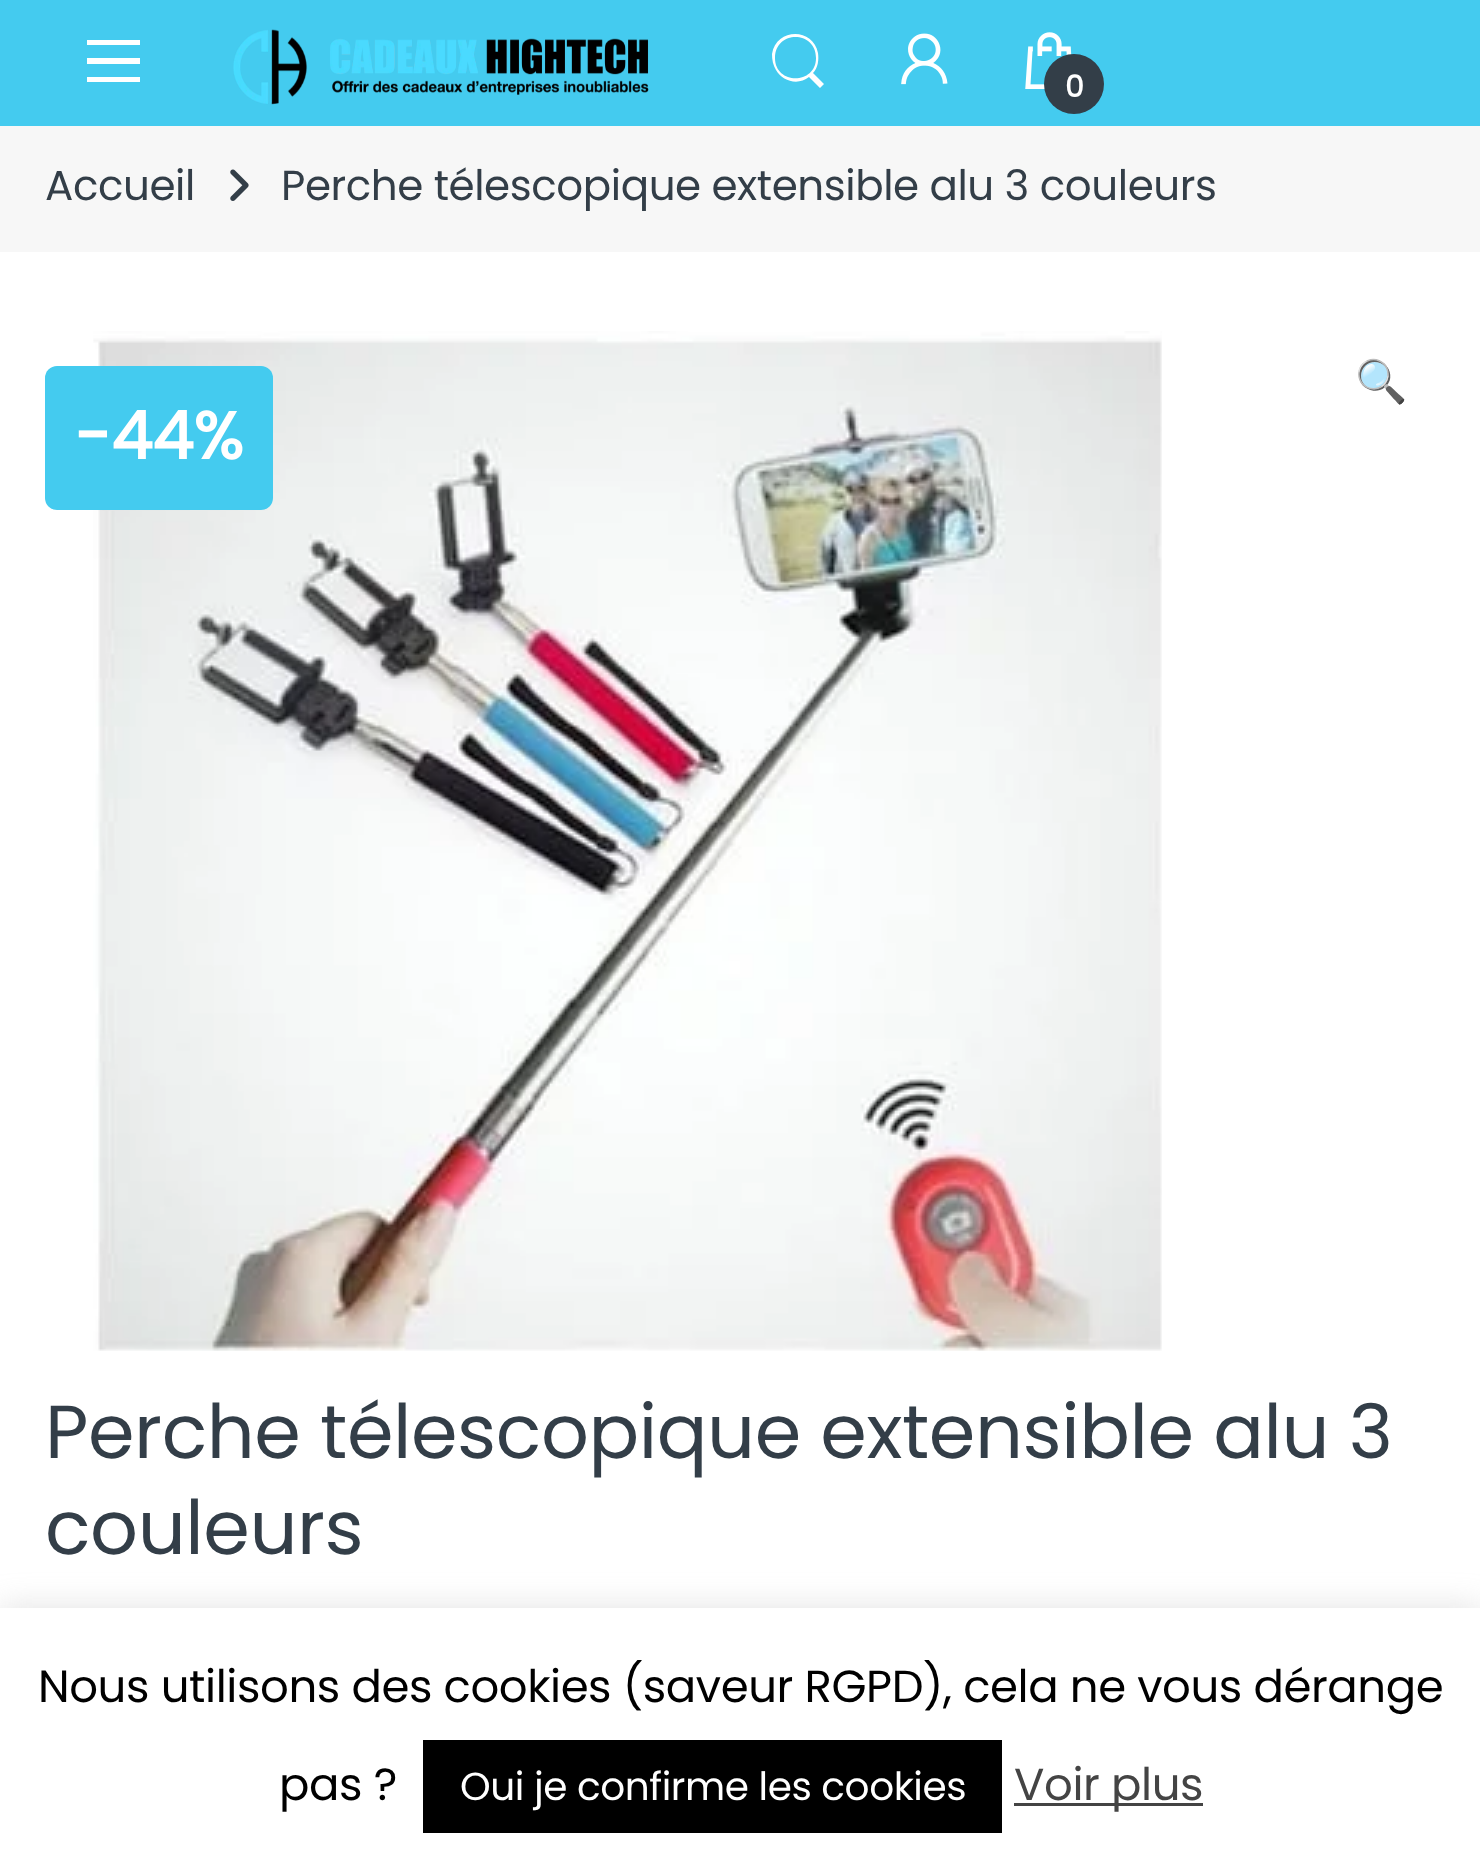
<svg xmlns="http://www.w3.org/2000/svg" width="1480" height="1867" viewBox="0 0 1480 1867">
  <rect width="100%" height="100%" fill="rgb(255,255,255)"/>
  <rect x="0" y="0" width="1480" height="126" fill="rgb(68,203,239)"/>
  <path d="M87 82V77H140V82ZM87 58H140V64H87ZM87 40H140V45H87Z" fill="rgb(255,255,255)"/>
  <image x="233" y="29" width="416" height="76" href="pic1.png"/>
  <path d="M824 84L813 73C818 68 819 60 818 53C813 27 776 28 772 54C772 60 773 65 776 70C782 81 798 86 809 77L820 88ZM775 58C775 30 816 30 816 58C816 85 775 85 775 58Z" fill="rgb(255,255,255)"/>
  <image x="901" y="33" width="47" height="52" href="pic2.png"/>
  <image x="1025" y="32" width="47" height="57" href="pic3.png"/>
  <circle cx="1074" cy="84" r="30" fill="rgb(51,62,72)"/>
  <text x="1065" y="97" font-family="Poppins" font-size="30" font-weight="bold" letter-spacing="-0.42" fill="rgb(255,255,255)">0</text>
  <rect x="0" y="126" width="1480" height="126" fill="rgb(247,247,247)"/>
  <text x="45" y="200" font-family="Poppins" font-size="42" letter-spacing="-0.42" fill="rgb(51,62,72)">Accueil</text>
  <image x="230" y="169" width="19" height="32" href="pic4.png"/>
  <text x="281" y="200" font-family="Poppins" font-size="42" letter-spacing="-0.42" fill="rgb(51,62,72)">Perche télescopique extensible alu 3 couleurs</text>
  <image x="93" y="331" width="1069" height="1020" href="pic5.png"/>
  <text x="1355" y="396" font-family="Noto Color Emoji" font-size="42" letter-spacing="-0.42" fill="rgb(51,62,72)">🔍</text>
  <rect x="45" y="366" width="228" height="144" rx="12" fill="rgb(68,203,239)"/>
  <text x="75" y="459" font-family="Poppins" font-size="66" font-weight="bold" letter-spacing="-0.42" fill="rgb(255,255,255)">-44%</text>
  <g font-family="Poppins" font-size="75" letter-spacing="-0.42" fill="rgb(51,62,72)">
    <text>
      <tspan x="45" y="1458">Perche télescopique extensible alu 3</tspan>
      <tspan x="45" y="1554">couleurs</tspan>
    </text>
  </g>
  <rect x="0" y="1605" width="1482" height="261" fill="rgba(172,171,171,0.3)" filter="blur(15px)"/>
  <rect x="0" y="1608" width="1480" height="259" fill="rgb(255,255,255)"/>
  <g font-family="Poppins" font-size="45" letter-spacing="-0.42" fill="rgb(0,0,0)">
    <text x="38" y="1702">Nous utilisons des cookies (saveur RGPD), cela ne vous dérange</text>
    <text x="279" y="1800">pas ?</text>
  </g>
  <rect x="423" y="1740" width="579" height="93" fill="rgb(0,0,0)"/>
  <text x="460" y="1800" font-family="Poppins" font-size="39" letter-spacing="-0.42" fill="rgb(255,255,255)">Oui je confirme les cookies</text>
  <rect x="1014" y="1803" width="189" height="3" fill="rgb(68,68,68)"/>
  <text x="1014" y="1800" font-family="Poppins" font-size="45" letter-spacing="-0.42" fill="rgb(68,68,68)">Voir plus</text>
</svg>
